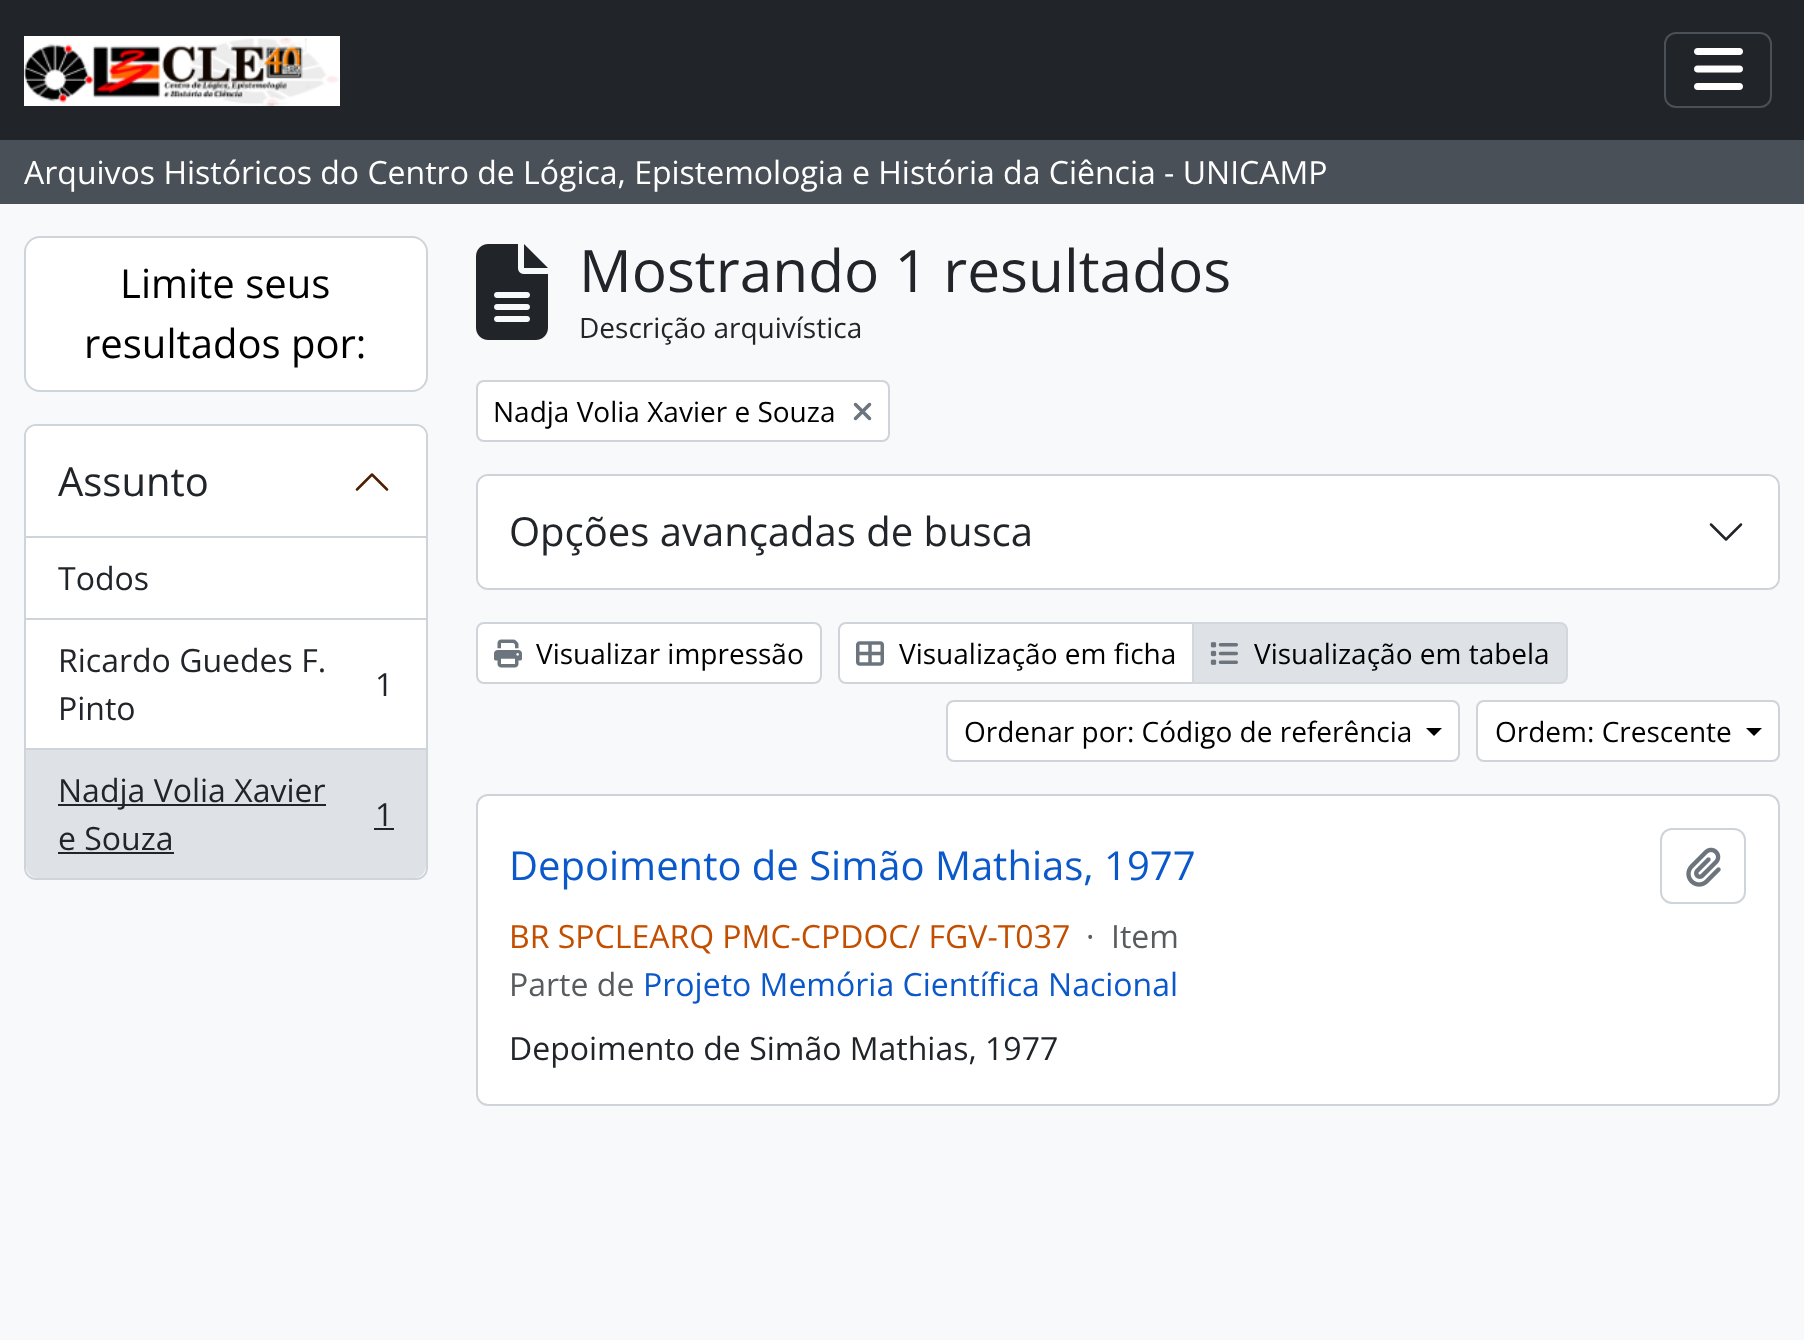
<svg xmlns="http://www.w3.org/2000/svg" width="1804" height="1340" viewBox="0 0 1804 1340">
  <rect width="100%" height="100%" fill="rgb(248,249,250)"/>
  <rect x="0" y="0" width="1804" height="140" fill="rgb(33,37,41)"/>
  <image x="24" y="36" width="316" height="70" href="pic1.png"/>
  <rect x="1665" y="33" width="106" height="74" rx="11" fill="none" stroke="rgb(73,80,87)" stroke-width="2"/>
  <image x="1694" y="48" width="49" height="42" href="pic2.png"/>
  <rect x="0" y="140" width="1804" height="64" fill="rgb(73,80,87)"/>
  <text x="24" y="184" font-family="Open Sans" font-size="32" fill="rgb(255,255,255)">Arquivos Históricos do Centro de Lógica, Epistemologia e História da Ciência - UNICAMP</text>
  <rect x="25" y="237" width="402" height="154" rx="15" fill="rgb(255,255,255)" stroke="rgb(206,212,218)" stroke-width="2"/>
  <g font-family="Open Sans" font-size="40" fill="rgb(0,0,0)">
    <text x="120" y="298">Limite seus</text>
    <text x="84" y="358">resultados por:</text>
  </g>
  <rect x="25" y="425" width="402" height="454" rx="11" fill="rgb(255,255,255)" stroke="rgb(206,212,218)" stroke-width="2"/>
  <path d="M36 426H416C421.5 426 426 430.5 426 436V538H26V436C26 430.5 30.5 426 36 426Z" fill="rgb(255,255,255)"/>
  <rect x="26" y="536" width="400" height="2" fill="rgb(206,212,218)"/>
  <text x="58" y="496" font-family="Open Sans" font-size="40" fill="rgb(33,37,41)">Assunto</text>
  <path d="M387 489.5L372 474.5L357 489.5" fill="none" stroke="rgb(78,31,0)" stroke-width="2.5" stroke-linecap="round" stroke-linejoin="round"/>
  <rect x="26" y="618" width="400" height="2" fill="rgb(206,212,218)"/>
  <text x="58" y="590" font-family="Open Sans" font-size="32" fill="rgb(33,37,41)">Todos</text>
  <rect x="26" y="748" width="400" height="2" fill="rgb(206,212,218)"/>
  <g font-family="Open Sans" font-size="32" fill="rgb(33,37,41)">
    <text x="58" y="672">Ricardo Guedes F.</text>
    <text x="375" y="696">1</text>
    <text x="58" y="720">Pinto</text>
  </g>
  <path d="M26 750H426V866C426 872.5 420.5 878 414 878H38C31.5 878 26 872.5 26 866Z" fill="rgb(222,226,230)"/>
  <rect x="58" y="804" width="268" height="2" fill="rgb(33,37,41)"/>
  <g font-family="Open Sans" font-size="32" fill="rgb(33,37,41)">
    <text x="58" y="802">Nadja Volia Xavier</text>
    <text x="375" y="826">1</text>
  </g>
  <rect x="374" y="828" width="20" height="2" fill="rgb(33,37,41)"/>
  <text x="58" y="850" font-family="Open Sans" font-size="32" fill="rgb(33,37,41)">e Souza</text>
  <rect x="58" y="852" width="116" height="2" fill="rgb(33,37,41)"/>
  <image x="476" y="244" width="72" height="96" href="pic3.png"/>
  <text x="579" y="292" font-family="Open Sans" font-size="58.6" fill="rgb(33,37,41)">Mostrando 1 resultados</text>
  <text x="579" y="338" font-family="Open Sans" font-size="28" fill="rgb(33,37,41)">Descrição arquivística</text>
  <rect x="477" y="381" width="412" height="60" rx="7" fill="rgb(255,255,255)" stroke="rgb(206,212,218)" stroke-width="2"/>
  <text x="493" y="422" font-family="Open Sans" font-size="28" fill="rgb(0,0,0)">Nadja Volia Xavier e Souza</text>
  <image x="853" y="402" width="19" height="19" href="pic4.png"/>
  <rect x="477" y="475" width="1302" height="114" rx="11" fill="none" stroke="rgb(206,212,218)" stroke-width="2"/>
  <rect x="478" y="476" width="1300" height="112" rx="10" fill="rgb(255,255,255)"/>
  <text x="509" y="546" font-family="Open Sans" font-size="40" fill="rgb(33,37,41)">Opções avançadas de busca</text>
  <path d="M1711 524.5L1726 539.5L1741 524.5" fill="none" stroke="rgb(33,37,41)" stroke-width="2.5" stroke-linecap="round" stroke-linejoin="round"/>
  <rect x="477" y="623" width="344" height="60" rx="7" fill="rgb(255,255,255)" stroke="rgb(206,212,218)" stroke-width="2"/>
  <image x="494" y="639" width="28" height="29" href="pic5.png"/>
  <text x="536" y="664" font-family="Open Sans" font-size="28" fill="rgb(0,0,0)">Visualizar impressão</text>
  <path d="M846 623H1193V683H846C842 683 839 680 839 676V630C839 626 842 623 846 623Z" fill="rgb(255,255,255)" stroke="rgb(206,212,218)" stroke-width="2"/>
  <image x="856" y="641" width="28" height="25" href="pic6.png"/>
  <text x="899" y="664" font-family="Open Sans" font-size="28" fill="rgb(0,0,0)">Visualização em ficha</text>
  <path d="M1193 623H1560C1564 623 1567 626 1567 630V676C1567 680 1564 683 1560 683H1193Z" fill="rgb(222,226,230)" stroke="rgb(211,216,222)" stroke-width="2"/>
  <image x="1210" y="642" width="28" height="23" href="pic7.png"/>
  <text x="1254" y="664" font-family="Open Sans" font-size="28" fill="rgb(0,0,0)">Visualização em tabela</text>
  <rect x="947" y="701" width="512" height="60" rx="7" fill="rgb(255,255,255)" stroke="rgb(206,212,218)" stroke-width="2"/>
  <text x="964" y="742" font-family="Open Sans" font-size="28" fill="rgb(0,0,0)">Ordenar por: Código de referência</text>
  <path d="M1426 728H1442L1434 736Z" fill="rgb(0,0,0)"/>
  <rect x="1477" y="701" width="302" height="60" rx="7" fill="rgb(255,255,255)" stroke="rgb(206,212,218)" stroke-width="2"/>
  <text x="1495" y="742" font-family="Open Sans" font-size="28" fill="rgb(0,0,0)">Ordem: Crescente</text>
  <path d="M1746 728H1762L1754 736Z" fill="rgb(0,0,0)"/>
  <rect x="477" y="795" width="1302" height="310" rx="11" fill="rgb(255,255,255)" stroke="rgb(206,212,218)" stroke-width="2"/>
  <text x="509" y="880" font-family="Open Sans" font-size="40" fill="rgb(10,88,202)">Depoimento de Simão Mathias, 1977</text>
  <rect x="1661" y="829" width="84" height="74" rx="11" fill="none" stroke="rgb(206,212,218)" stroke-width="2"/>
  <image x="1686" y="847" width="35" height="40" href="pic8.png"/>
  <text x="509" y="948" font-family="Open Sans" font-size="32" fill="rgb(196,78,0)">BR SPCLEARQ PMC-CPDOC/ FGV-T037</text>
  <g font-family="Open Sans" font-size="32" fill="rgb(89,92,95)">
    <text x="1086" y="948">·</text>
    <text x="1111" y="948">Item</text>
    <text x="509" y="996">Parte de</text>
  </g>
  <text x="643" y="996" font-family="Open Sans" font-size="32" fill="rgb(10,88,202)">Projeto Memória Científica Nacional</text>
  <text x="509" y="1060" font-family="Open Sans" font-size="32" fill="rgb(33,37,41)">Depoimento de Simão Mathias, 1977</text>
</svg>
